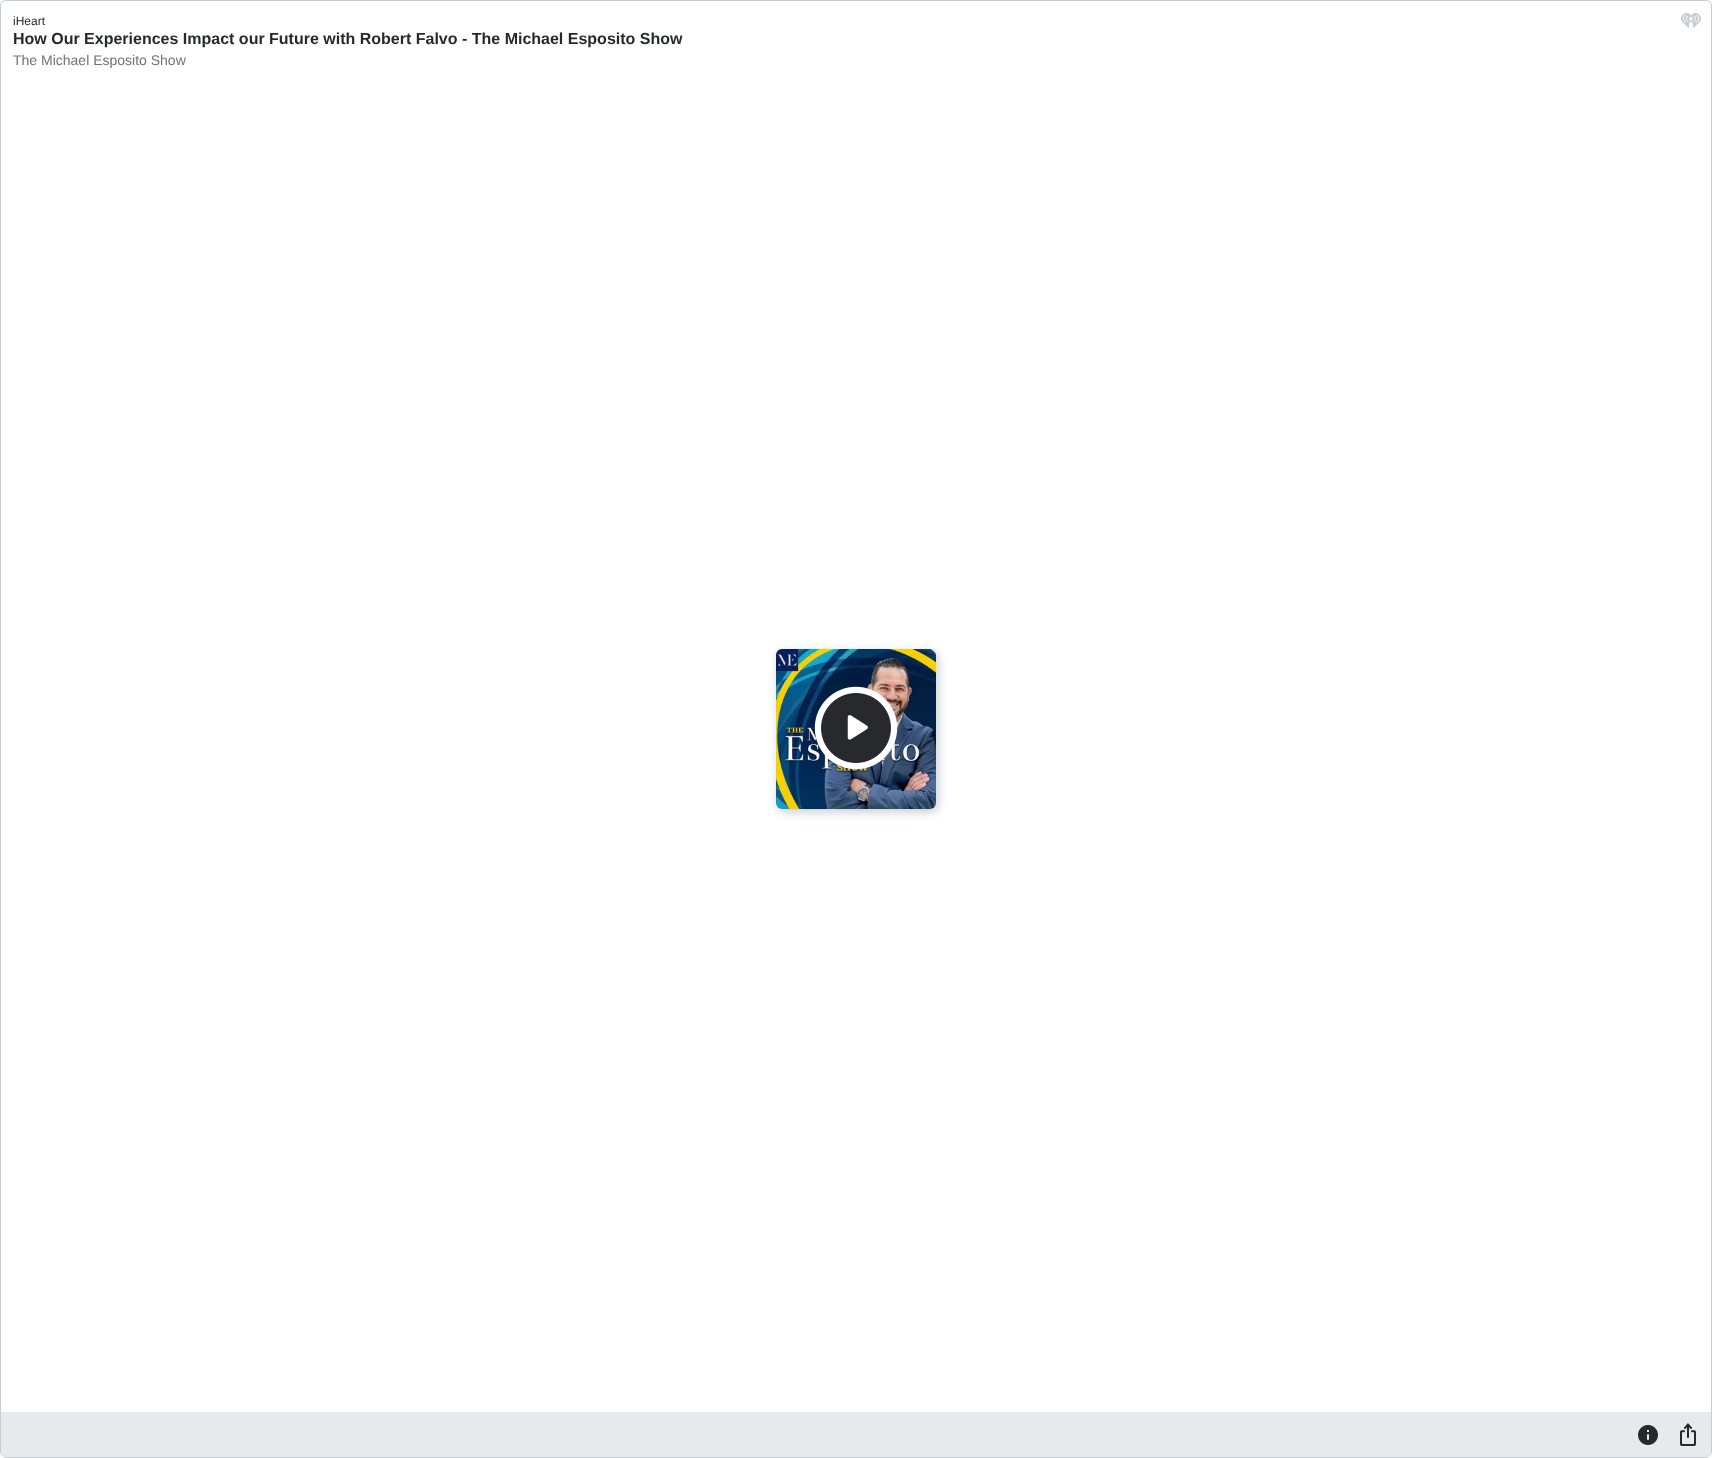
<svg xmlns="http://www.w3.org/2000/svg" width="1712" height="1458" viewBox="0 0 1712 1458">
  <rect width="100%" height="100%" fill="rgb(255,255,255)"/>
  <rect x="0.5" y="0.5" width="1711" height="1457" rx="5.5" fill="none" stroke="rgb(197,205,210)"/>
  <text x="13" y="25" font-family="Liberation Sans" font-size="12" fill="rgb(39,41,45)">iHeart</text>
  <text x="13" y="44" font-family="Liberation Sans" font-size="16" font-weight="bold" fill="rgb(39,41,45)">How Our Experiences Impact our Future with Robert Falvo - The Michael Esposito Show</text>
  <text x="13" y="65" font-family="Liberation Sans" font-size="14" fill="rgb(113,114,119)">The Michael Esposito Show</text>
  <image x="1681" y="13" width="20" height="15" href="pic1.png"/>
  <path d="M1 1412H1711V1452C1711 1455 1709 1457 1706 1457H6C3 1457 1 1455 1 1452Z" fill="rgb(230,234,237)"/>
  <rect x="778" y="652" width="160" height="160" rx="6" fill="rgb(197,205,210)" filter="blur(5px)"/>
  <image x="776" y="649" width="160" height="160" href="pic2.png"/>
  <image x="1638" y="1425" width="20" height="20" href="pic3.png"/>
  <image x="1680" y="1423" width="16" height="23" href="pic4.png"/>
  <image x="814" y="686" width="84" height="84" href="pic5.png"/>
</svg>
